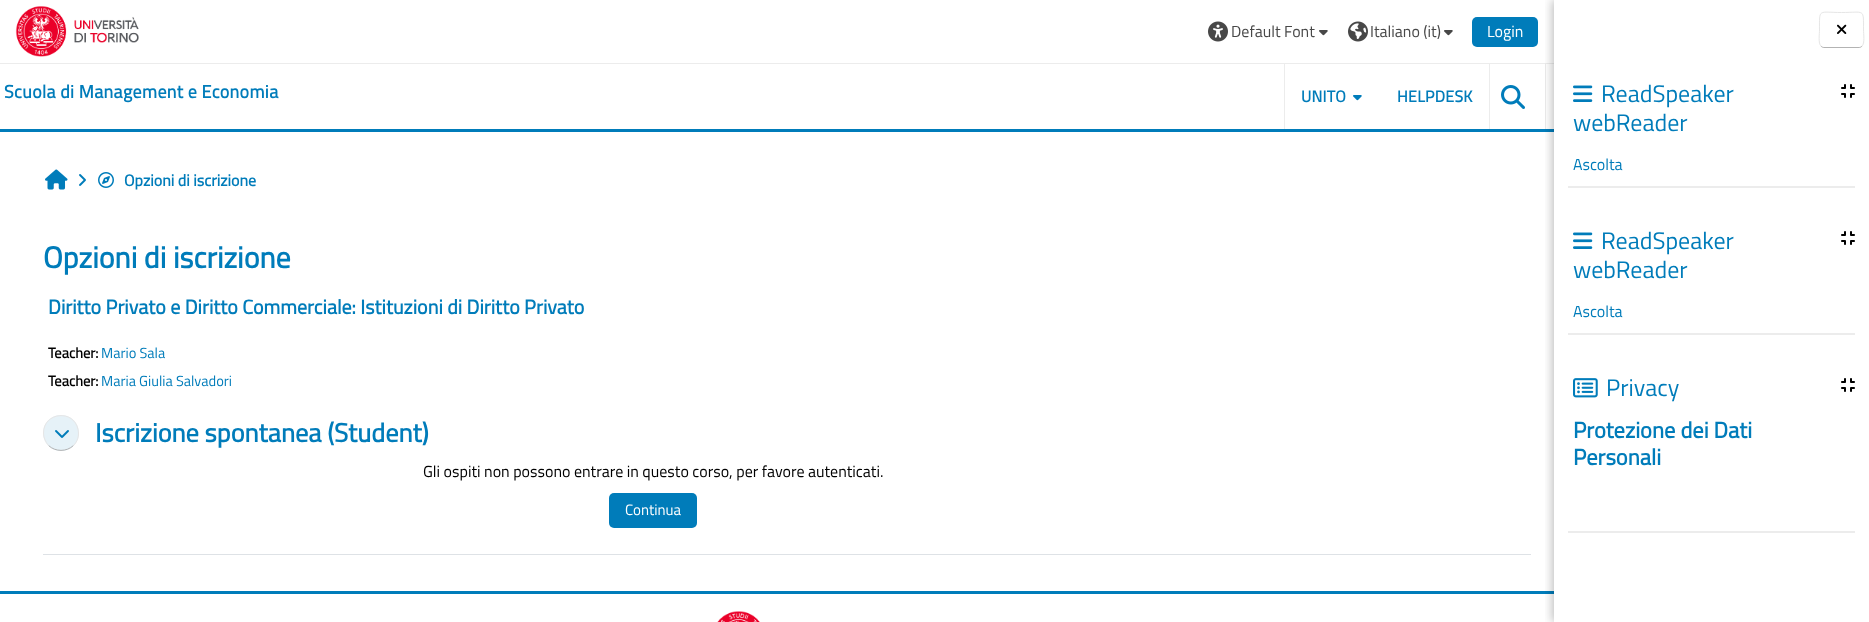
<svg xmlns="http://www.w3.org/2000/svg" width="1869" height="622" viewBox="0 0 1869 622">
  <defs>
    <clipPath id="clip1"><rect x="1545" y="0" width="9" height="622"/></clipPath>
  </defs>
  <rect width="100%" height="100%" fill="rgb(255,255,255)"/>
  <rect x="0" y="129" width="1554" height="3" fill="rgb(0,124,186)"/>
  <rect x="0" y="63" width="1554" height="1" fill="rgb(236,236,236)"/>
  <image x="15" y="6" width="124" height="51" href="pic1.png"/>
  <image x="1208" y="21" width="20" height="21" href="pic2.png"/>
  <text x="1231" y="37" font-family="Titillium Web" font-size="16" fill="rgb(72,72,72)">Default Font</text>
  <image x="1319" y="30" width="9" height="6" href="pic3.png"/>
  <image x="1348" y="21" width="20" height="21" href="pic4.png"/>
  <text x="1370" y="37" font-family="Titillium Web" font-size="16" fill="rgb(72,72,72)">Italiano (it)</text>
  <image x="1444" y="30" width="9" height="6" href="pic3.png"/>
  <rect x="1472" y="17" width="66" height="30" rx="5" fill="rgb(0,124,186)"/>
  <text x="1487" y="37" font-family="Titillium Web" font-size="16" fill="rgb(255,255,255)">Login</text>
  <text x="4" y="98" font-family="Titillium Web" font-size="18" font-weight="bold" letter-spacing="0.35" fill="rgb(0,124,186)">Scuola di Management e Economia</text>
  <rect x="1489" y="64" width="1" height="65" fill="rgb(236,236,236)"/>
  <rect x="1284" y="64" width="1" height="65" fill="rgb(236,236,236)"/>
  <text x="1301" y="102" font-family="Titillium Web" font-size="16" font-weight="bold" letter-spacing="0.25" fill="rgb(0,124,186)">UNITO</text>
  <image x="1353" y="95" width="9" height="6" href="pic5.png"/>
  <text x="1397" y="102" font-family="Titillium Web" font-size="16" font-weight="bold" letter-spacing="0.25" fill="rgb(0,124,186)">HELPDESK</text>
  <rect x="1545" y="64" width="1" height="65" fill="rgb(236,236,236)"/>
  <image x="1501" y="85" width="24" height="24" href="pic6.png"/>
  <image x="45" y="169" width="23" height="21" href="pic7.png"/>
  <image x="79" y="174" width="7" height="12" href="pic8.png"/>
  <image x="98" y="172" width="16" height="16" href="pic9.png"/>
  <text x="124" y="186" font-family="Titillium Web" font-size="16" font-weight="bold" fill="rgb(0,124,186)">Opzioni di iscrizione</text>
  <text x="43" y="268" font-family="Titillium Web" font-size="30" font-weight="bold" fill="rgb(0,124,186)">Opzioni di iscrizione</text>
  <text x="48" y="314" font-family="Titillium Web" font-size="20" font-weight="bold" fill="rgb(0,124,186)">Diritto Privato e Diritto Commerciale: Istituzioni di Diritto Privato</text>
  <text x="48" y="358" font-family="Titillium Web" font-size="14.5" font-weight="bold" fill="rgb(0,0,0)">Teacher:</text>
  <text x="101" y="358" font-family="Titillium Web" font-size="14.5" fill="rgb(0,124,186)">Mario Sala</text>
  <text x="48" y="386" font-family="Titillium Web" font-size="14.5" font-weight="bold" fill="rgb(0,0,0)">Teacher:</text>
  <text x="101" y="386" font-family="Titillium Web" font-size="14.5" fill="rgb(0,124,186)">Maria Giulia Salvadori</text>
  <rect x="43" y="554" width="1488" height="1" fill="rgb(222,226,230)"/>
  <circle cx="61" cy="433" r="18" fill="rgb(230,242,248)"/>
  <path d="M73.5 445.5C66.5 452 55.5 452 48.5 445.5" fill="none" stroke="rgb(179,179,179)"/>
  <path d="M48.5 445.5C45.5 442 43.5 437.5 43.5 433C43.5 412 74 409 78 429.5C79.5 435.5 77.5 441.5 73.5 445.5" fill="none" stroke="rgb(230,230,230)"/>
  <image x="55" y="430" width="14" height="8" href="pic10.png"/>
  <text x="95" y="442" font-family="Titillium Web" font-size="26.25" font-weight="bold" fill="rgb(0,124,186)">Iscrizione spontanea (Student)</text>
  <text x="423" y="477" font-family="Titillium Web" font-size="16" fill="rgb(0,0,0)">Gli ospiti non possono entrare in questo corso, per favore autenticati.</text>
  <rect x="609" y="493" width="88" height="35" rx="5" fill="rgb(0,124,186)"/>
  <text x="625" y="515" font-family="Titillium Web" font-size="15" fill="rgb(255,255,255)">Continua</text>
  <rect x="0" y="591" width="1554" height="3" fill="rgb(0,124,186)"/>
  <image x="717" y="611" width="43" height="11" href="pic11.png"/>
  <g clip-path="url(#clip1)">
    <rect x="1552" y="0" width="315" height="622" fill="rgba(0,0,0,0.25)" filter="blur(5px)"/>
  </g>
  <path d="M1862 46C1861.5 47 1860 47.5 1859 47.5H1824C1823 47.5 1821.5 47 1821 46" fill="none" stroke="rgb(179,179,179)"/>
  <path d="M1821 46C1818 43.5 1819.5 33.5 1819.5 30C1819.5 8 1818 12.5 1841.5 12.5C1865 12.5 1863.5 8 1863.5 30C1863.5 33.5 1865 43.5 1862 46" fill="none" stroke="rgb(230,230,230)"/>
  <image x="1837" y="24" width="10" height="10" href="pic12.png"/>
  <image x="1573" y="85" width="20" height="17" href="pic13.png"/>
  <g font-family="Titillium Web" font-size="24" fill="rgb(0,124,186)">
    <text x="1601" y="102">ReadSpeaker</text>
    <text x="1573" y="131">webReader</text>
  </g>
  <image x="1841" y="84" width="14" height="14" href="pic14.png"/>
  <rect x="1568" y="186" width="287" height="2" fill="rgb(236,236,236)"/>
  <text x="1573" y="170" font-family="Titillium Web" font-size="16" fill="rgb(0,124,186)">Ascolta</text>
  <image x="1573" y="232" width="20" height="17" href="pic13.png"/>
  <g font-family="Titillium Web" font-size="24" fill="rgb(0,124,186)">
    <text x="1601" y="249">ReadSpeaker</text>
    <text x="1573" y="278">webReader</text>
  </g>
  <image x="1841" y="231" width="14" height="14" href="pic14.png"/>
  <rect x="1568" y="333" width="287" height="2" fill="rgb(236,236,236)"/>
  <text x="1573" y="317" font-family="Titillium Web" font-size="16" fill="rgb(0,124,186)">Ascolta</text>
  <image x="1573" y="378" width="25" height="20" href="pic15.png"/>
  <text x="1606" y="396" font-family="Titillium Web" font-size="24" fill="rgb(0,124,186)">Privacy</text>
  <image x="1841" y="378" width="14" height="14" href="pic14.png"/>
  <rect x="1568" y="531" width="287" height="2" fill="rgb(236,236,236)"/>
  <g font-family="Titillium Web" font-size="22.5" font-weight="bold" fill="rgb(0,124,186)">
    <text>
      <tspan x="1573" y="438">Protezione dei Dati</tspan>
      <tspan x="1573" y="465">Personali</tspan>
    </text>
  </g>
</svg>
